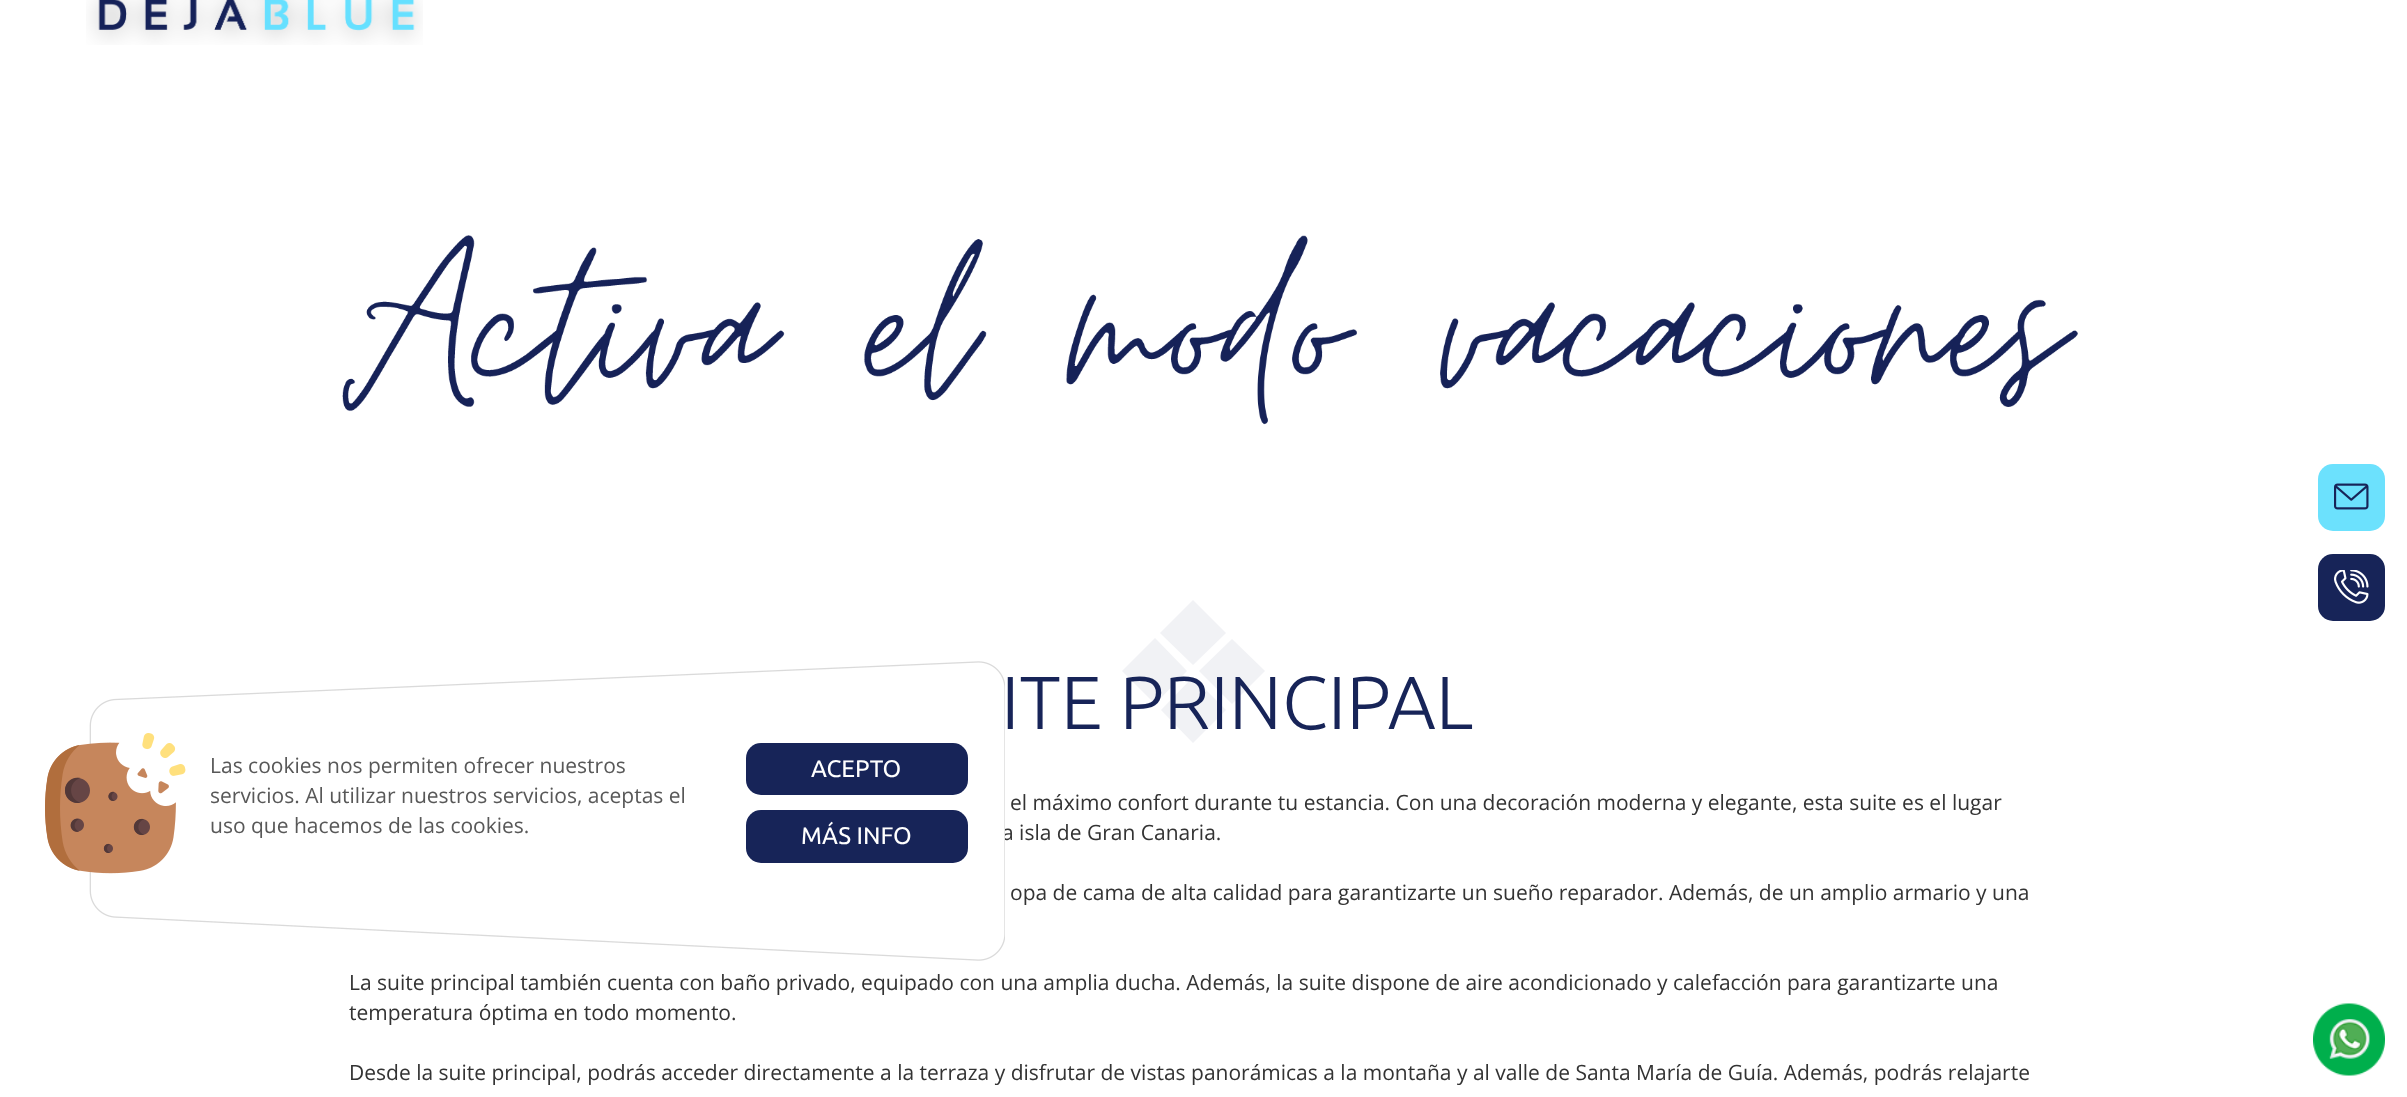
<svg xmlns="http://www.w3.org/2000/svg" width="2407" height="1097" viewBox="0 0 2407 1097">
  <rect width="100%" height="100%" fill="rgb(255,255,255)"/>
  <image x="86" y="0" width="337" height="45" href="pic1.png"/>
  <image x="2313" y="1003" width="72" height="73" href="pic2.png"/>
  <image x="342" y="235" width="1736" height="190" href="pic3.png"/>
  <rect x="2318" y="464" width="67" height="67" rx="15" fill="rgb(108,225,253)"/>
  <image x="2334" y="483" width="35" height="27" href="pic4.png"/>
  <rect x="2318" y="554" width="67" height="67" rx="15" fill="rgb(23,36,88)"/>
  <image x="2334" y="570" width="35" height="34" href="pic5.png"/>
  <path d="M1122 671L1155 638L1187 671L1155 704Z" fill="rgb(241,242,245)"/>
  <path d="M1160 633L1193 600L1226 633L1193 665Z" fill="rgb(241,242,245)"/>
  <path d="M1161 710L1193 677L1226 710L1193 743Z" fill="rgb(241,242,245)"/>
  <path d="M1199 671L1232 639L1265 671L1232 704Z" fill="rgb(241,242,245)"/>
  <text x="1001" y="729" font-family="Ubuntu" font-size="75" font-weight="300" fill="rgb(23,36,88)">ITE PRINCIPAL</text>
  <g font-family="Open Sans" font-size="21" fill="rgb(51,51,51)">
    <text x="1010" y="810">el máximo confort durante tu estancia. Con una decoración moderna y elegante, esta suite es el lugar</text>
    <text x="1002" y="840">a isla de Gran Canaria.</text>
    <text x="1010" y="900">opa de cama de alta calidad para garantizarte un sueño reparador. Además, de un amplio armario y una</text>
    <text>
      <tspan x="349" y="990">La suite principal también cuenta con baño privado, equipado con una amplia ducha. Además, la suite dispone de aire acondicionado y calefacción para garantizarte una</tspan>
      <tspan x="349" y="1020">temperatura óptima en todo momento.</tspan>
    </text>
    <text x="349" y="1080">Desde la suite principal, podrás acceder directamente a la terraza y disfrutar de vistas panorámicas a la montaña y al valle de Santa María de Guía. Además, podrás relajarte</text>
  </g>
  <image x="45" y="661" width="960" height="300" href="pic6.png"/>
  <g font-family="Open Sans" font-size="21" fill="rgb(88,88,88)">
    <text>
      <tspan x="210" y="773">Las cookies nos permiten ofrecer nuestros</tspan>
      <tspan x="210" y="803">servicios. Al utilizar nuestros servicios, aceptas el</tspan>
      <tspan x="210" y="833">uso que hacemos de las cookies.</tspan>
    </text>
  </g>
  <rect x="746" y="743" width="222" height="52" rx="15" fill="rgb(23,36,88)"/>
  <text x="811" y="777" font-family="Ubuntu" font-size="24" fill="rgb(255,255,255)">ACEPTO</text>
  <rect x="746" y="810" width="222" height="53" rx="15" fill="rgb(23,36,88)"/>
  <text x="801" y="844" font-family="Ubuntu" font-size="24" fill="rgb(255,255,255)">MÁS INFO</text>
</svg>
